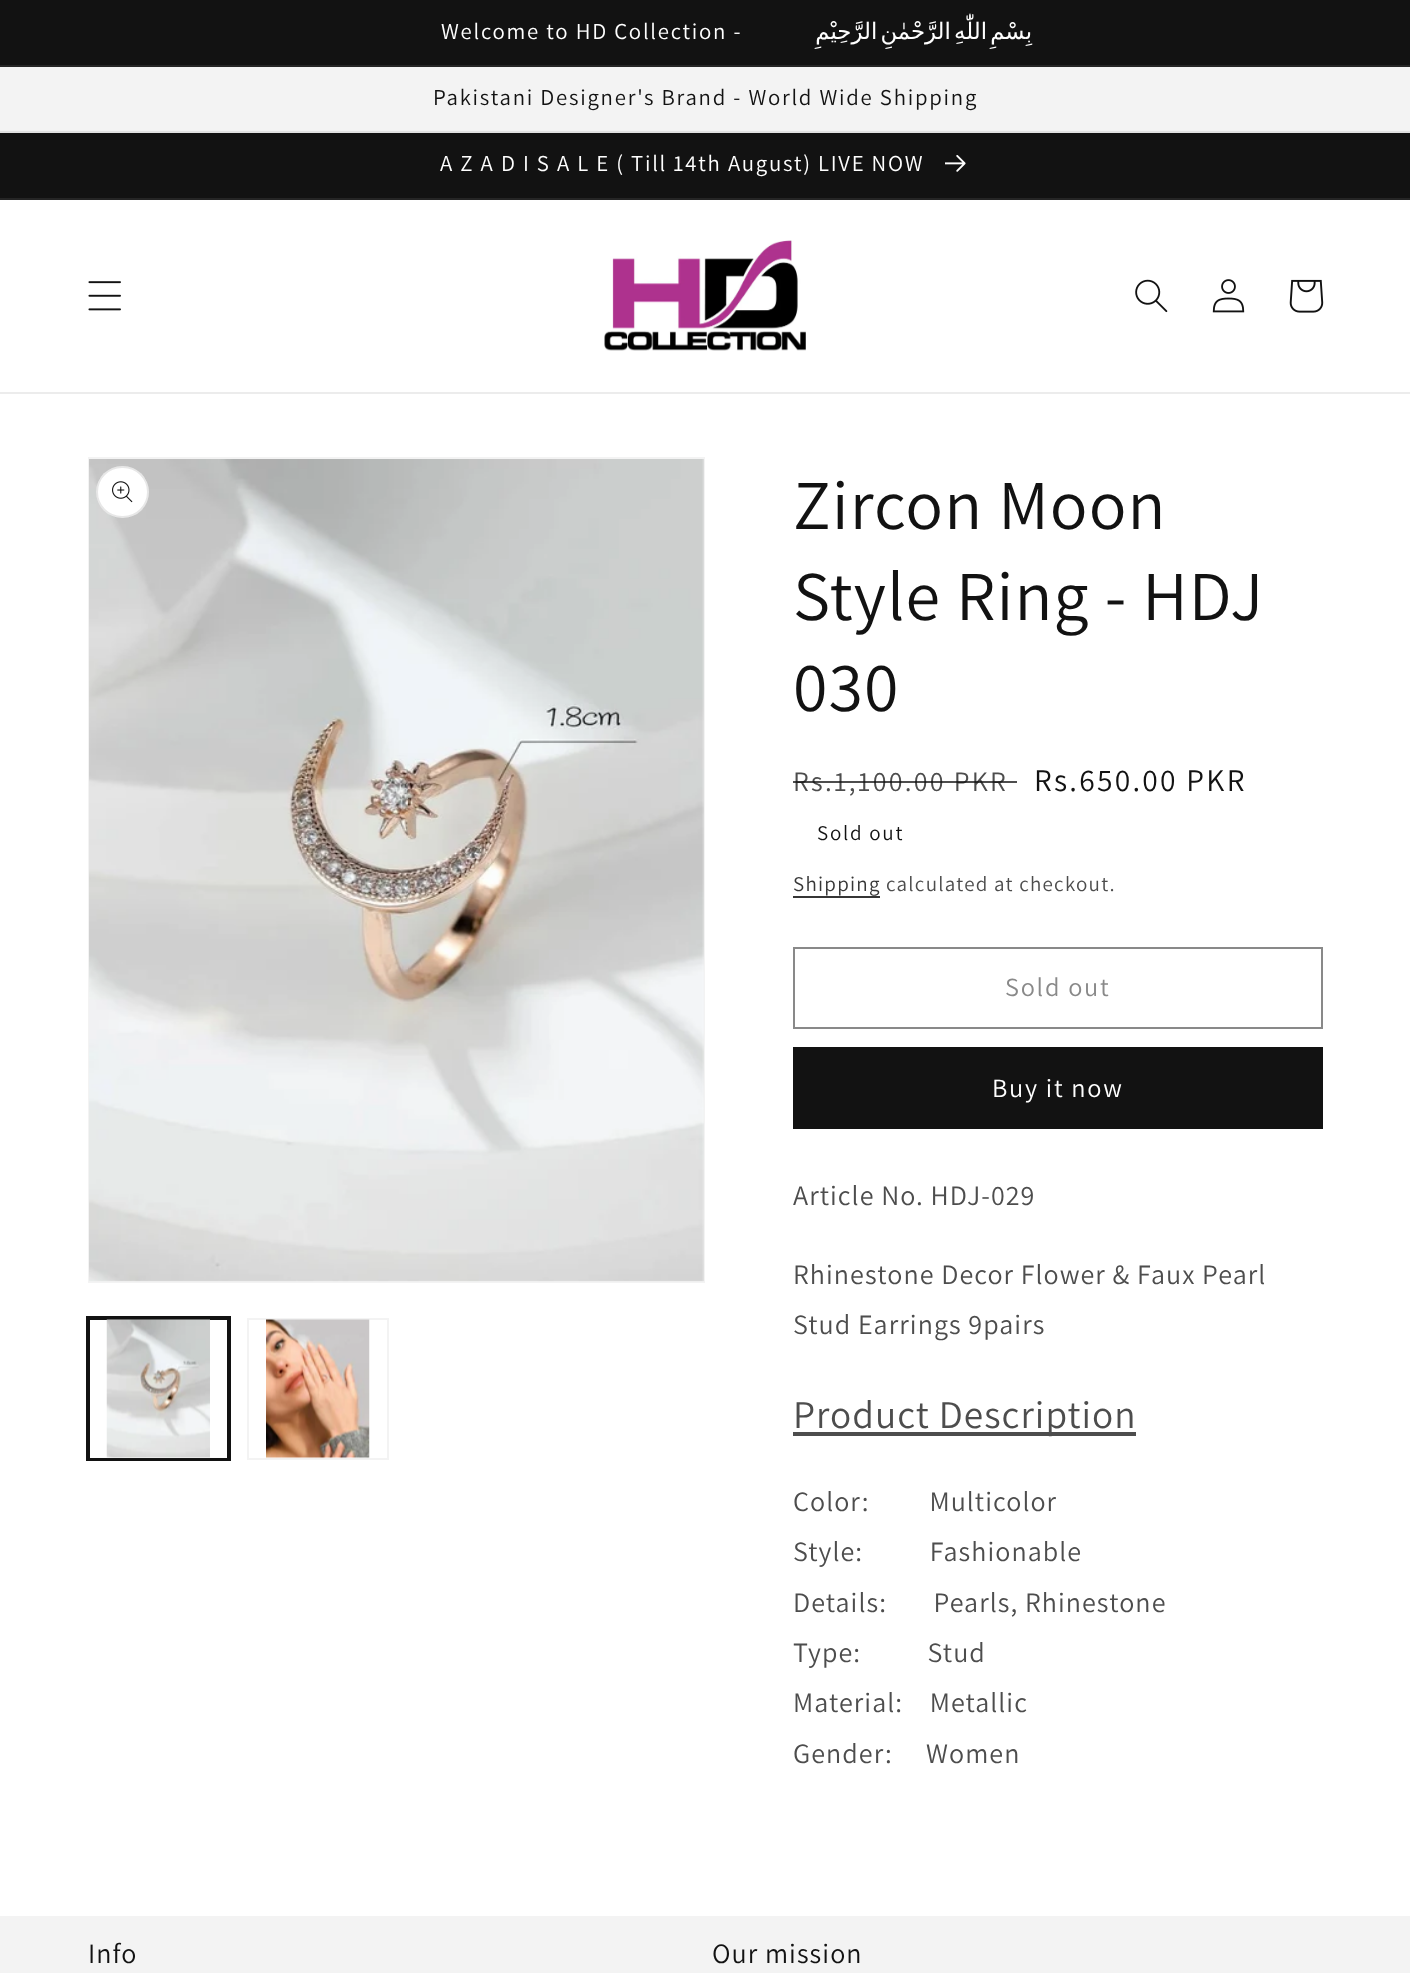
<svg xmlns="http://www.w3.org/2000/svg" width="1410" height="1973" viewBox="0 0 1410 1973">
  <rect width="100%" height="100%" fill="rgb(255,255,255)"/>
  <rect x="0" y="0" width="1410" height="65" fill="rgb(18,18,18)"/>
  <rect x="0" y="65" width="1410" height="2" fill="rgb(37,37,37)"/>
  <text x="441" y="39" font-family="Assistant" font-size="22.75" letter-spacing="1.75" fill="rgb(255,255,255)">Welcome to HD Collection -</text>
  <text x="1032" y="39" word-spacing="-4" font-family="DejaVu Sans" font-size="22.75" letter-spacing="1.75" direction="rtl" fill="rgb(255,255,255)">بِسْمِ اللّٰهِ الرَّحْمٰنِ الرَّحِیْمِ</text>
  <rect x="0" y="67" width="1410" height="64" fill="rgb(243,243,243)"/>
  <rect x="0" y="131" width="1410" height="2" fill="rgb(225,225,225)"/>
  <text x="433" y="105" font-family="Assistant" font-size="22.75" letter-spacing="1.75" fill="rgb(18,18,18)">Pakistani Designer's Brand - World Wide Shipping</text>
  <rect x="0" y="133" width="1410" height="65" fill="rgb(18,18,18)"/>
  <rect x="0" y="198" width="1410" height="2" fill="rgb(37,37,37)"/>
  <text x="440" y="171" font-family="Assistant" font-size="22.75" letter-spacing="1.75" fill="rgb(255,255,255)">A Z A D I S A L E ( Till 14th August) LIVE NOW</text>
  <image x="945" y="155" width="21" height="17" href="pic1.png"/>
  <rect x="0" y="392" width="1410" height="2" fill="rgb(236,236,236)"/>
  <image x="88" y="281" width="33" height="30" href="pic2.png"/>
  <image x="604" y="240" width="202" height="111" href="pic3.png"/>
  <image x="1135" y="279" width="33" height="34" href="pic4.png"/>
  <image x="1212" y="279" width="33" height="34" href="pic5.png"/>
  <image x="1289" y="279" width="35" height="34" href="pic6.png"/>
  <rect x="89" y="458" width="615" height="824" fill="none" stroke="rgb(243,243,243)" stroke-width="2"/>
  <image x="89" y="459" width="615" height="823" href="pic7.png"/>
  <rect x="96" y="466" width="53" height="52" rx="26" fill="rgb(255,255,255)"/>
  <rect x="97" y="467" width="51" height="50" rx="25" fill="none" stroke="rgba(18,18,18,0.1)" stroke-width="2"/>
  <image x="112" y="481" width="21" height="22" href="pic8.png"/>
  <rect x="87" y="1317" width="143" height="143" fill="none" stroke="rgb(18,18,18)" stroke-width="2"/>
  <rect x="89" y="1319" width="139" height="140" fill="none" stroke="rgb(18,18,18)" stroke-width="2"/>
  <image x="106" y="1319" width="104" height="140" href="pic9.png"/>
  <rect x="248" y="1319" width="140" height="140" fill="none" stroke="rgb(243,243,243)" stroke-width="2"/>
  <image x="266" y="1319" width="104" height="140" href="pic10.png"/>
  <g font-family="Assistant" font-size="70" letter-spacing="1.05" fill="rgb(18,18,18)">
    <text>
      <tspan x="793" y="529">Zircon Moon</tspan>
      <tspan x="793" y="620">Style Ring - HDJ</tspan>
      <tspan x="793" y="711">030</tspan>
    </text>
  </g>
  <text x="793" y="791" font-family="Assistant" font-size="28" letter-spacing="2.25" fill="rgb(77,77,77)">Rs.1,100.00 PKR</text>
  <rect x="793" y="781" width="224" height="2" fill="rgba(18,18,18,0.75)"/>
  <text x="1034" y="791" font-family="Assistant" font-size="31.5" letter-spacing="2.25" fill="rgb(18,18,18)">Rs.650.00 PKR</text>
  <text x="817" y="840" font-family="Assistant" font-size="21" letter-spacing="1.75" fill="rgb(18,18,18)">Sold out</text>
  <text x="793" y="891" font-family="Assistant" font-size="21" letter-spacing="1.25" fill="rgb(54,54,54)">Shipping</text>
  <rect x="793" y="896" width="87" height="2" fill="rgb(54,54,54)"/>
  <text x="886" y="891" font-family="Assistant" font-size="21" letter-spacing="1.25" fill="rgb(77,77,77)">calculated at checkout.</text>
  <rect x="794" y="948" width="528" height="80" fill="none" stroke="rgb(137,137,137)" stroke-width="2"/>
  <text x="1005" y="996" font-family="Assistant" font-size="26.25" letter-spacing="1.75" fill="rgb(137,137,137)">Sold out</text>
  <rect x="793" y="1047" width="530" height="82" fill="rgb(18,18,18)"/>
  <text x="992" y="1097" font-family="Assistant" font-size="26.25" letter-spacing="1.75" fill="rgb(255,255,255)">Buy it now</text>
  <g font-family="Assistant" font-size="28" letter-spacing="1.05" fill="rgb(77,77,77)">
    <text x="793" y="1205">Article No. HDJ-029</text>
    <text>
      <tspan x="793" y="1284">Rhinestone Decor Flower &amp; Faux Pearl</tspan>
      <tspan x="793" y="1334">Stud Earrings 9pairs</tspan>
    </text>
  </g>
  <rect x="793" y="1432" width="343" height="4" fill="rgb(77,77,77)"/>
  <text x="793" y="1428" font-family="Assistant" font-size="39.25" letter-spacing="1.05" fill="rgb(77,77,77)">Product Description</text>
  <g font-family="Assistant" font-size="28" letter-spacing="1.05" fill="rgb(77,77,77)">
    <text xml:space="preserve"><tspan x="793" y="1511">Color:         Multicolor</tspan><tspan x="793" y="1561">Style:          Fashionable</tspan><tspan x="793" y="1612">Details:       Pearls, Rhinestone</tspan><tspan x="793" y="1662">Type:          Stud</tspan><tspan x="793" y="1712">Material:    Metallic</tspan><tspan x="793" y="1763">Gender:     Women</tspan></text>
  </g>
  <rect x="0" y="1916" width="1410" height="57" fill="rgb(243,243,243)"/>
  <g font-family="Assistant" font-size="28" letter-spacing="1.05" fill="rgb(18,18,18)">
    <text x="88" y="1963">Info</text>
    <text x="712" y="1963">Our mission</text>
  </g>
</svg>
